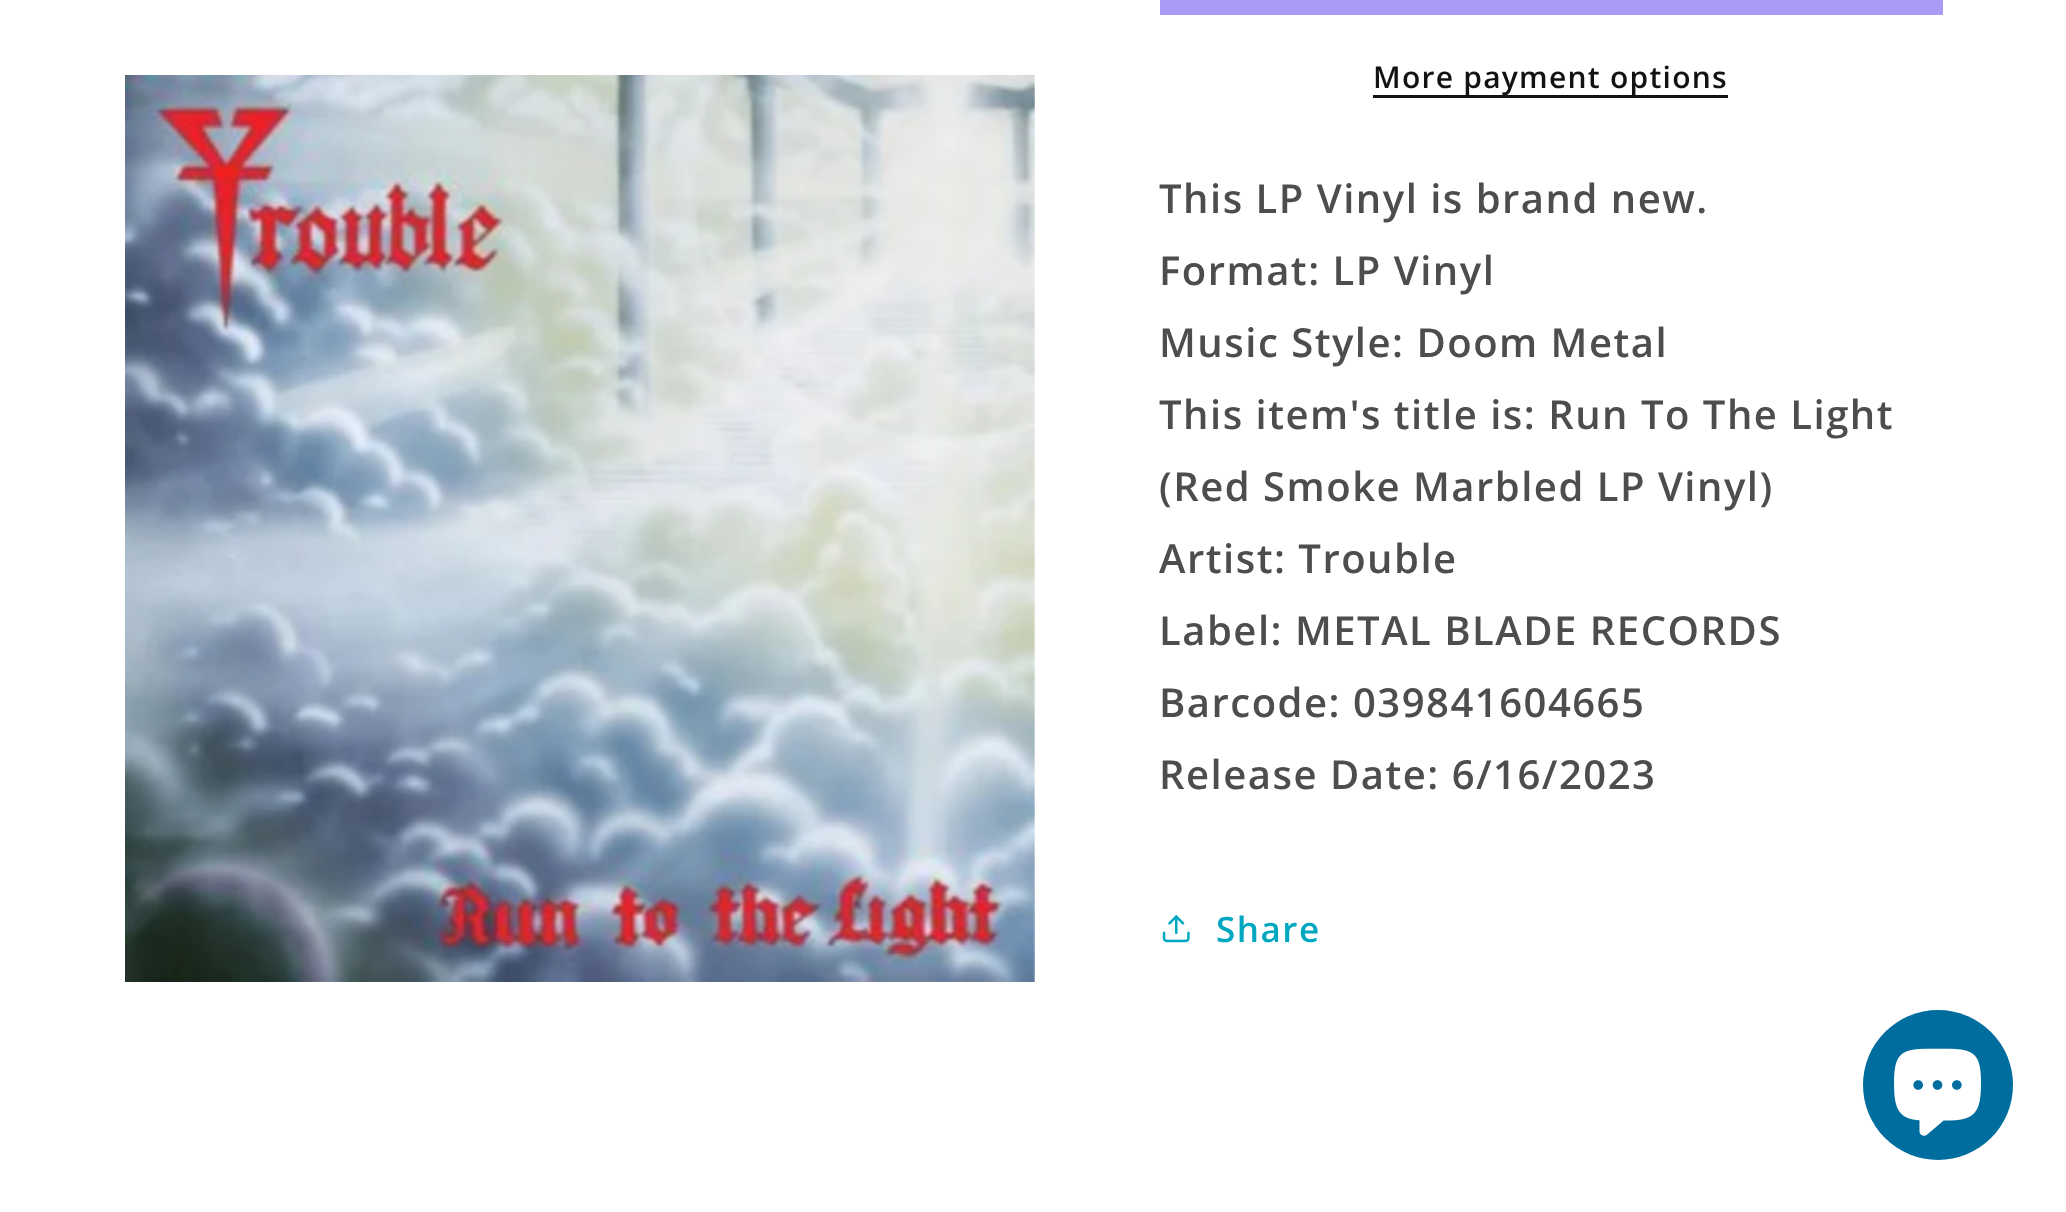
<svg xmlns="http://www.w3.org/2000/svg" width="2066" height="1212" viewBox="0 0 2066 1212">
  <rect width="100%" height="100%" fill="rgb(255,255,255)"/>
  <image x="125" y="75" width="910" height="907" href="pic1.png"/>
  <rect x="1160" y="0" width="783" height="15" fill="rgb(170,153,245)"/>
  <rect x="1373" y="95" width="355" height="3" fill="rgb(18,18,18)"/>
  <text x="1373" y="88" font-family="Open Sans" font-size="30" font-weight="600" letter-spacing="1.25" fill="rgb(18,18,18)">More payment options</text>
  <g font-family="Open Sans" font-size="40" font-weight="600" letter-spacing="1.5" fill="rgb(77,77,77)">
    <text>
      <tspan x="1159" y="213">This LP Vinyl is brand new.</tspan>
      <tspan x="1159" y="285">Format: LP Vinyl</tspan>
      <tspan x="1159" y="357">Music Style: Doom Metal</tspan>
      <tspan x="1159" y="429">This item's title is: Run To The Light</tspan>
      <tspan x="1159" y="501">(Red Smoke Marbled LP Vinyl)</tspan>
      <tspan x="1159" y="573">Artist: Trouble</tspan>
      <tspan x="1159" y="645">Label: METAL BLADE RECORDS</tspan>
      <tspan x="1159" y="717">Barcode: 039841604665</tspan>
      <tspan x="1159" y="789">Release Date: 6/16/2023</tspan>
    </text>
  </g>
  <image x="1162" y="915" width="28" height="28" href="pic2.png"/>
  <text x="1216" y="942" font-family="Open Sans" font-size="35" font-weight="600" letter-spacing="1.5" fill="rgb(0,167,193)">Share</text>
  <circle cx="1938" cy="1085" r="75" fill="rgb(0,109,159)"/>
  <image x="1894" y="1048" width="87" height="88" href="pic3.png"/>
</svg>
